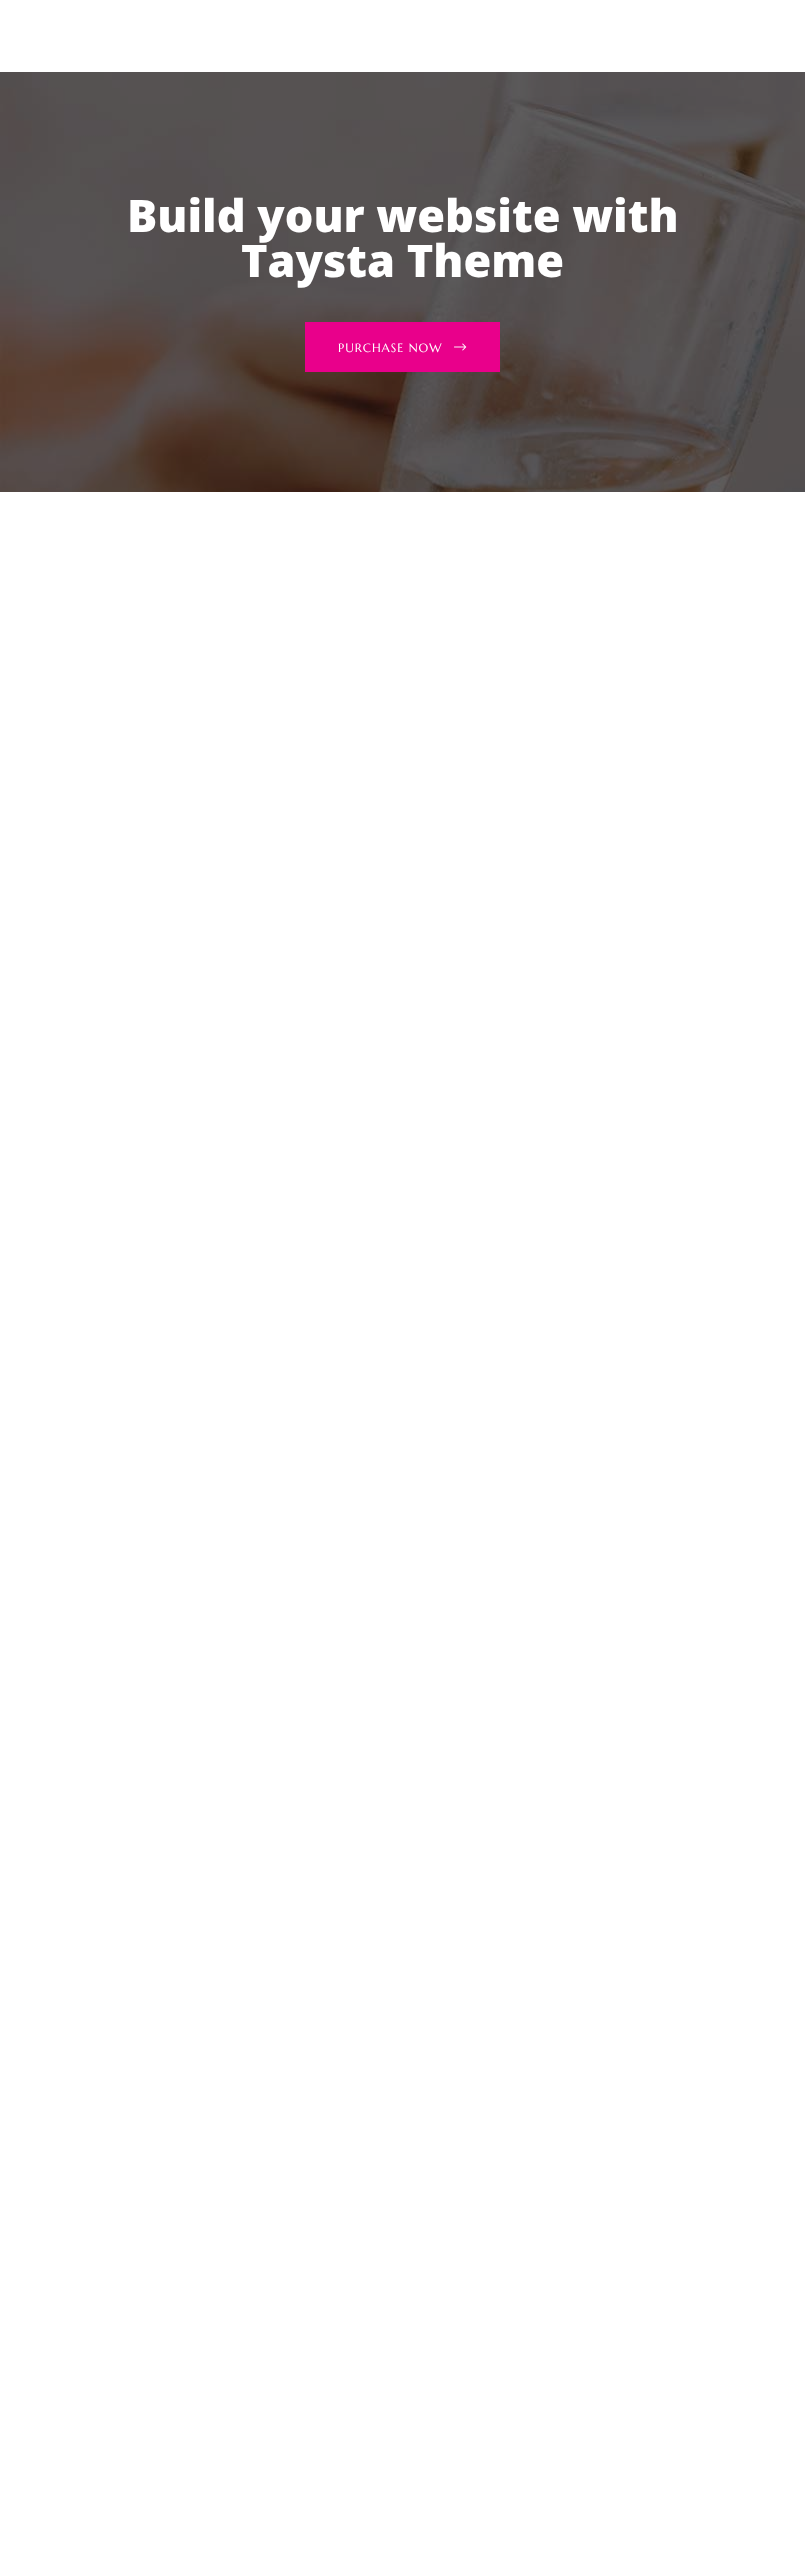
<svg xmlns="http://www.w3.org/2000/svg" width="805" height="2557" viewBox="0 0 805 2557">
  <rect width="100%" height="100%" fill="rgb(255,255,255)"/>
  <image x="0" y="72" width="805" height="420" href="pic1.png"/>
  <g font-family="Open Sans" font-size="45" font-weight="800" fill="rgb(255,255,255)">
    <text x="127" y="232">Build your website with</text>
    <text x="241" y="277">Taysta Theme</text>
  </g>
  <rect x="305" y="322" width="195" height="50" fill="rgb(233,0,139)"/>
  <text x="338" y="352" font-family="Marcellus" font-size="12" letter-spacing="1" fill="rgb(255,255,255)">PURCHASE NOW</text>
  <image x="454" y="343" width="13" height="8" href="pic2.png"/>
</svg>
